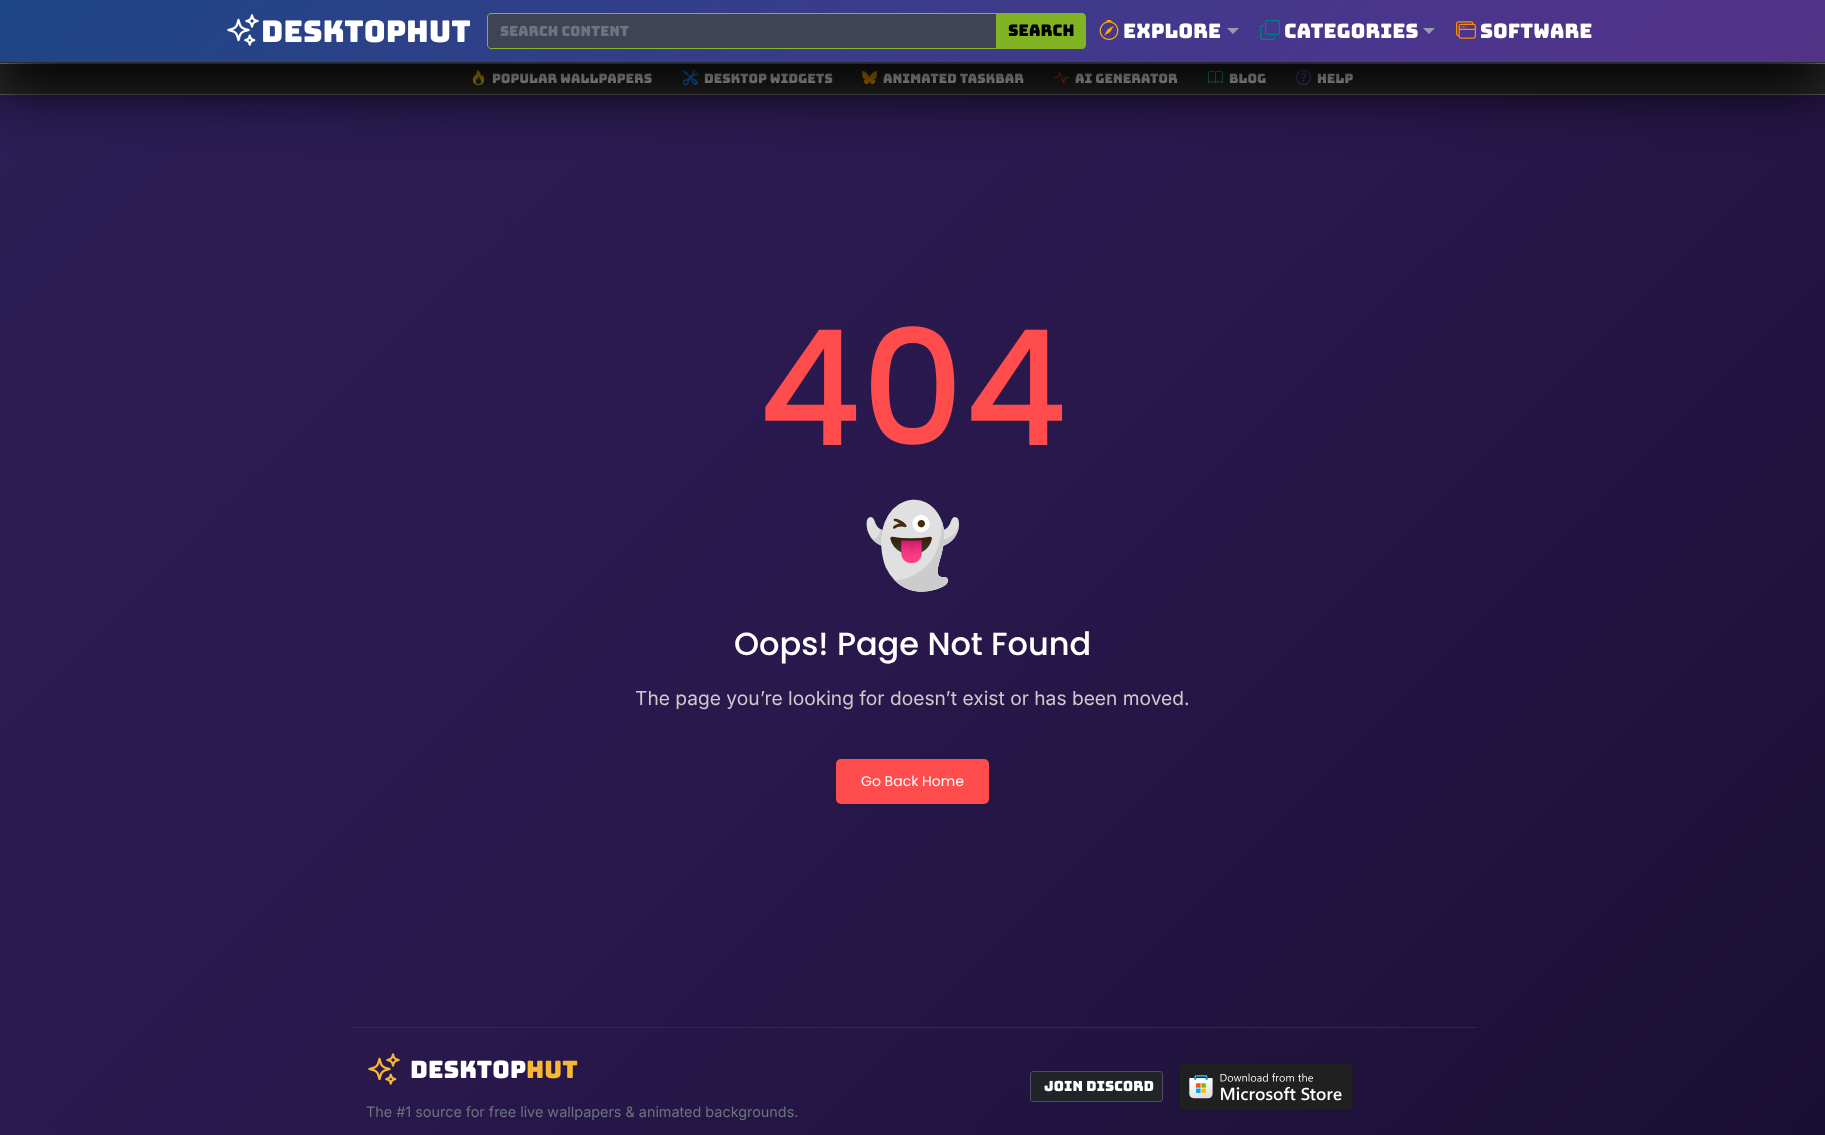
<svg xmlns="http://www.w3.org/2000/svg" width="1825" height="1135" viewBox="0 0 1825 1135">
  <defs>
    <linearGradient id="g1" gradientUnits="userSpaceOnUse" x1="172" y1="-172" x2="1653" y2="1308"><stop offset="0" stop-color="rgb(43,30,86)"/><stop offset="0.5" stop-color="rgb(41,24,76)"/><stop offset="1" stop-color="rgb(25,15,50)"/></linearGradient>
    <linearGradient id="g2" gradientUnits="userSpaceOnUse" x1="172" y1="-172" x2="1653" y2="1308"><stop offset="0" stop-color="rgb(29,70,134)"/><stop offset="0.5" stop-color="rgb(76,53,141)"/><stop offset="1" stop-color="rgb(98,48,116)"/></linearGradient>
  </defs>
  <rect width="100%" height="100%" fill="rgb(255,255,255)"/>
  <rect x="0" y="95" width="1825" height="1040" fill="url(#g1)"/>
  <rect x="0" y="64" width="1825" height="30" fill="rgb(41,41,41)"/>
  <rect x="0" y="63" width="1825" height="1" fill="rgb(155,152,152)"/>
  <rect x="0" y="94" width="1825" height="1" fill="rgb(93,91,97)"/>
  <image x="472" y="70" width="13" height="15" href="pic12.png"/>
  <image x="492" y="73" width="160" height="11" href="pic13.png"/>
  <image x="683" y="70" width="15" height="15" href="pic14.png"/>
  <image x="704" y="73" width="129" height="11" href="pic15.png"/>
  <image x="862" y="71" width="15" height="14" href="pic16.png"/>
  <image x="883" y="73" width="141" height="10" href="pic17.png"/>
  <image x="1054" y="71" width="15" height="13" href="pic18.png"/>
  <image x="1075" y="73" width="103" height="11" href="pic19.png"/>
  <image x="1208" y="70" width="15" height="14" href="pic20.png"/>
  <image x="1229" y="73" width="37" height="11" href="pic21.png"/>
  <image x="1296" y="70" width="15" height="15" href="pic22.png"/>
  <image x="1317" y="73" width="36" height="10" href="pic23.png"/>
  <rect x="0" y="25" width="1825" height="63" fill="rgb(0,0,0)" filter="blur(27.5px)"/>
  <rect x="0" y="0" width="1825" height="62" fill="url(#g2)"/>
  <rect x="0" y="62" width="1825" height="1" fill="rgb(41,44,50)"/>
  <image x="227" y="14" width="32" height="32" href="pic1.png"/>
  <image x="263" y="19" width="143" height="24" href="pic2.png"/>
  <image x="408" y="20" width="62" height="23" href="pic3.png"/>
  <path d="M491 13.5H996.5V48.5H491C489 48.5 487.5 47 487.5 45V17C487.5 15 489 13.5 491 13.5Z" fill="rgb(63,68,84)" stroke="rgb(132,184,36)"/>
  <image x="500" y="25" width="129" height="12" href="pic4.png"/>
  <path d="M996 13H1082C1084 13 1086 15 1086 17V45C1086 47 1084 49 1082 49H996Z" fill="rgb(129,180,34)"/>
  <image x="1008" y="24" width="66" height="12" href="pic5.png"/>
  <image x="1099" y="20" width="20" height="20" href="pic6.png"/>
  <image x="1124" y="23" width="97" height="16" href="pic7.png"/>
  <path d="M1227 28H1239L1233 34Z" fill="rgb(150,157,177)"/>
  <image x="1260" y="20" width="20" height="20" href="pic8.png"/>
  <image x="1285" y="23" width="133" height="16" href="pic9.png"/>
  <path d="M1423 28H1435L1429 34Z" fill="rgb(150,157,177)"/>
  <image x="1456" y="21" width="20" height="18" href="pic10.png"/>
  <image x="1481" y="23" width="111" height="16" href="pic11.png"/>
  <text x="758" y="445" font-family="Poppins" font-size="160" font-weight="500" fill="rgb(255,76,76)">404</text>
  <text x="863" y="573" font-family="Noto Color Emoji" font-size="80" fill="rgb(102,102,102)">👻</text>
  <text x="734" y="655" font-family="Poppins" font-size="32" font-weight="500" fill="rgb(255,255,255)">Oops! Page Not Found</text>
  <text x="635" y="705" font-family="Inter" font-size="19.2" fill="rgb(204,204,204)">The page you’re looking for doesn’t exist or has been moved.</text>
  <rect x="836" y="759" width="153" height="45" rx="5" fill="rgb(255,76,76)"/>
  <text x="861" y="786" font-family="Poppins" font-size="14" fill="rgb(255,255,255)">Go Back Home</text>
  <rect x="350" y="1027" width="1126" height="1" fill="rgb(52,36,88)"/>
  <rect x="1030.5" y="1071.5" width="132" height="30" rx="2.5" fill="rgb(33,37,41)" stroke="rgb(79,75,104)"/>
  <image x="1044" y="1080" width="110" height="12" href="pic24.png"/>
  <image x="1178" y="1063" width="176" height="48" href="pic25.png"/>
  <image x="368" y="1053" width="32" height="32" href="pic26.png"/>
  <image x="411" y="1060" width="115" height="19" href="pic27.png"/>
  <image x="527" y="1060" width="51" height="19" href="pic28.png"/>
  <text x="366" y="1117" font-family="Inter" font-size="14.4" fill="rgb(108,117,125)">The #1 source for free live wallpapers &amp; animated backgrounds.</text>
</svg>
